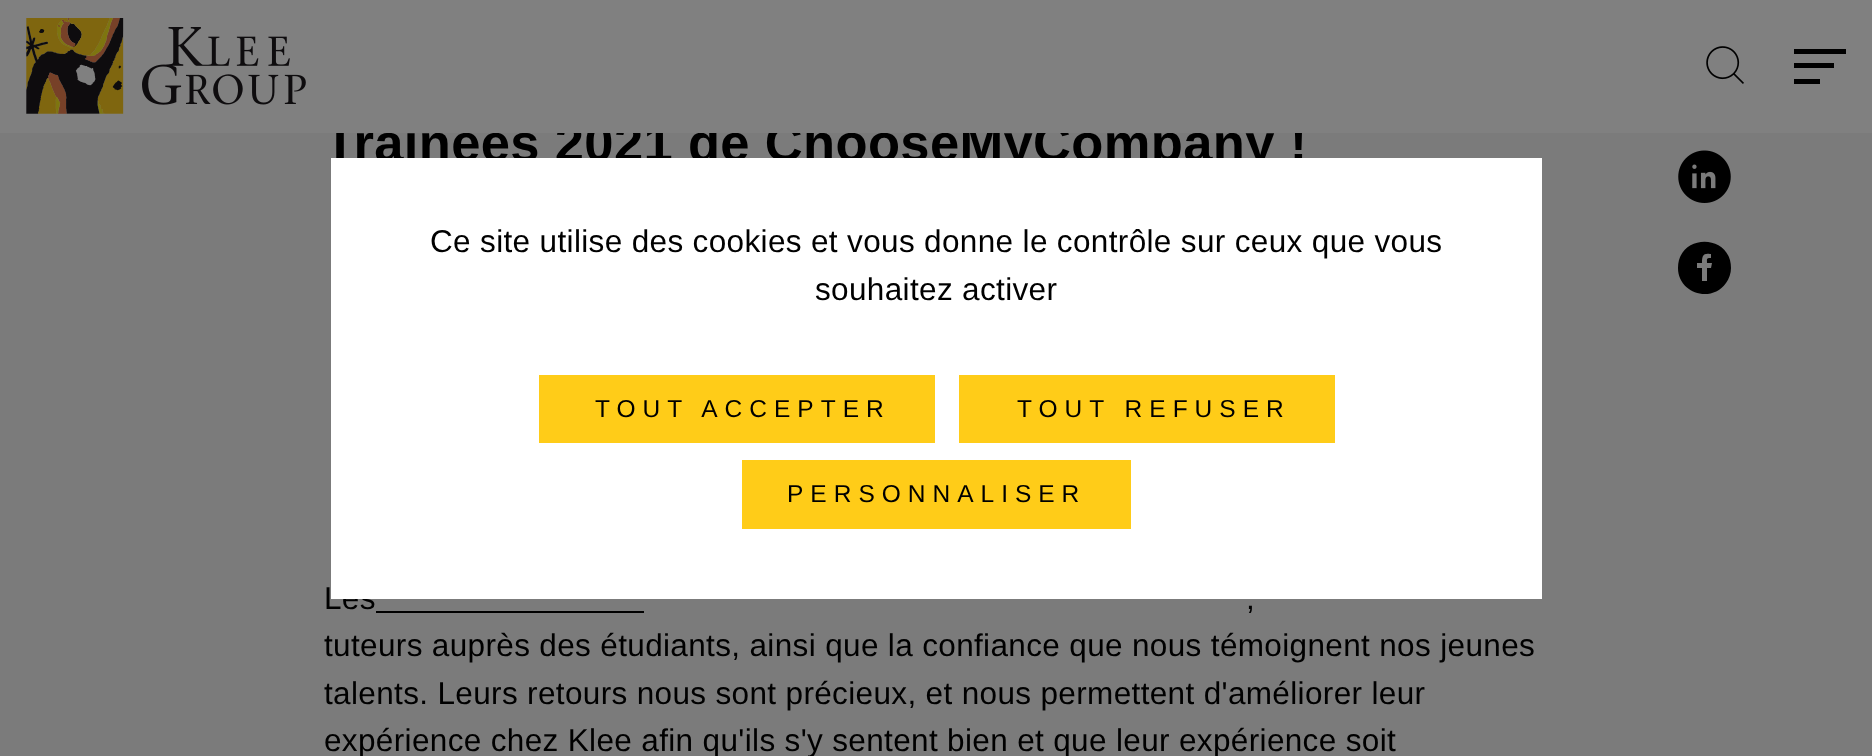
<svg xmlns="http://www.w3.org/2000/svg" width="1872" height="756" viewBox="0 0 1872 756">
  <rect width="100%" height="100%" fill="rgb(123,123,123)"/>
  <text x="324" y="161" font-family="Liberation Sans" font-size="52.5" font-weight="bold" letter-spacing="0.35" fill="rgb(0,0,0)">Trainees 2021 de ChooseMyCompany !</text>
  <rect x="0" y="0" width="1872" height="133" fill="rgb(128,128,128)"/>
  <image x="26" y="18" width="280" height="96" href="pic1.png"/>
  <image x="1706" y="46" width="38" height="38" href="pic2.png"/>
  <rect x="1794" y="49" width="52" height="5" fill="rgb(0,0,0)"/>
  <rect x="1794" y="63" width="40" height="5" fill="rgb(0,0,0)"/>
  <rect x="1794" y="79" width="26" height="5" fill="rgb(0,0,0)"/>
  <text x="324" y="609" font-family="Liberation Sans" font-size="31.5" letter-spacing="0.35" fill="rgb(0,0,0)">Les</text>
  <rect x="376" y="611" width="268" height="2" fill="rgb(0,0,0)"/>
  <g font-family="Liberation Sans" font-size="31.5" letter-spacing="0.35" fill="rgb(0,0,0)">
    <text x="1246" y="609">,</text>
    <text>
      <tspan x="324" y="656">tuteurs auprès des étudiants, ainsi que la confiance que nous témoignent nos jeunes</tspan>
      <tspan x="324" y="704">talents. Leurs retours nous sont précieux, et nous permettent d'améliorer leur</tspan>
      <tspan x="324" y="751">expérience chez Klee afin qu'ils s'y sentent bien et que leur expérience soit</tspan>
    </text>
  </g>
  <image x="1678" y="150" width="53" height="53" href="pic3.png"/>
  <path d="M1731 268C1731 273 1729 279 1726 283C1711 304 1678 293 1678 268C1678 233 1731 233 1731 268ZM1707 281V268H1711L1712 263H1707C1707 259 1706 258 1711 258V254H1710C1703 253 1702 256 1702 263H1697V268H1702V281Z" fill="rgb(0,0,0)"/>
  <rect x="331" y="158" width="1211" height="441" fill="rgb(255,255,255)"/>
  <g font-family="Liberation Sans" font-size="31.5" letter-spacing="0.35" fill="rgb(0,0,0)">
    <text x="430" y="252">Ce site utilise des cookies et vous donne le contrôle sur ceux que vous</text>
    <text x="815" y="300">souhaitez activer</text>
  </g>
  <rect x="539" y="375" width="396" height="68" fill="rgb(255,204,24)"/>
  <text x="595" y="417" font-family="Liberation Sans" font-size="24.5" letter-spacing="7" fill="rgb(0,0,0)">TOUT ACCEPTER</text>
  <rect x="959" y="375" width="376" height="68" fill="rgb(255,204,24)"/>
  <text x="1017" y="417" font-family="Liberation Sans" font-size="24.5" letter-spacing="7" fill="rgb(0,0,0)">TOUT REFUSER</text>
  <rect x="742" y="460" width="389" height="69" fill="rgb(255,204,24)"/>
  <text x="787" y="502" font-family="Liberation Sans" font-size="24.5" letter-spacing="7" fill="rgb(0,0,0)">PERSONNALISER</text>
</svg>
